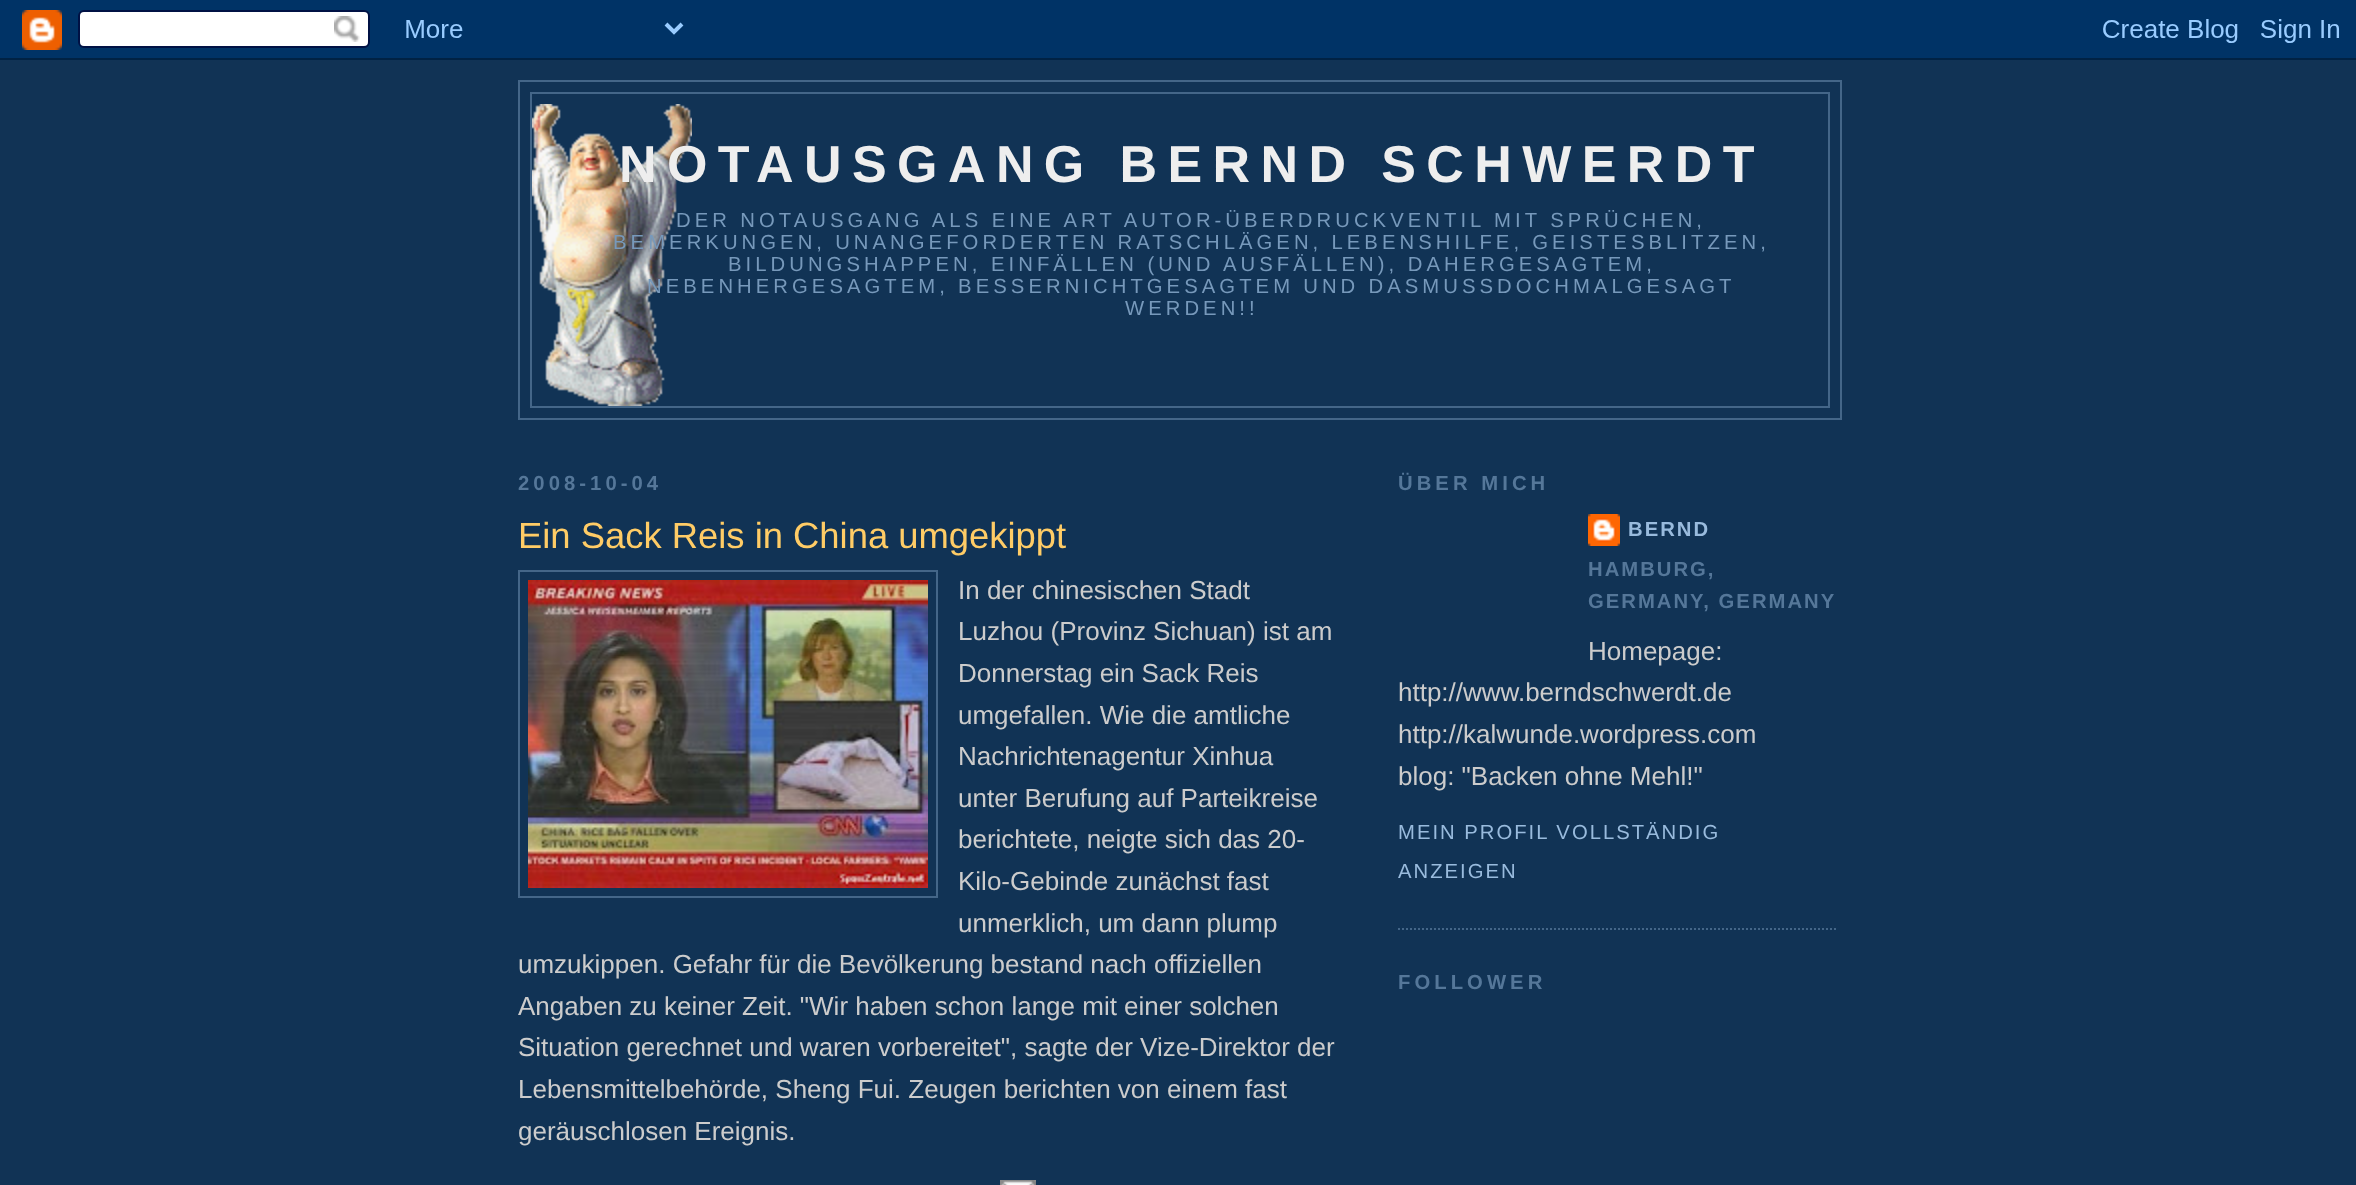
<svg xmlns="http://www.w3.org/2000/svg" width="2356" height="1185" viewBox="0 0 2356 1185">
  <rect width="100%" height="100%" fill="rgb(17,51,85)"/>
  <image x="0" y="0" width="2356" height="60" href="pic1.png"/>
  <rect x="519" y="81" width="1322" height="338" fill="none" stroke="rgb(68,102,136)" stroke-width="2"/>
  <rect x="531" y="93" width="1298" height="314" fill="none" stroke="rgb(68,102,136)" stroke-width="2"/>
  <image x="532" y="104" width="160" height="302" href="pic2.png"/>
  <text x="619" y="182" font-family="Liberation Sans" font-size="52" font-weight="bold" letter-spacing="10.4" fill="rgb(238,238,238)">NOTAUSGANG BERND SCHWERDT</text>
  <g font-family="Liberation Sans" font-size="20.28" letter-spacing="4.05" fill="rgb(119,153,187)">
    <text x="676" y="227" word-spacing="-0.25">DER NOTAUSGANG ALS EINE ART AUTOR-ÜBERDRUCKVENTIL MIT SPRÜCHEN,</text>
    <text x="613" y="249" word-spacing="-0.5">BEMERKUNGEN, UNANGEFORDERTEN RATSCHLÄGEN, LEBENSHILFE, GEISTESBLITZEN,</text>
    <text x="728" y="271">BILDUNGSHAPPEN, EINFÄLLEN (UND AUSFÄLLEN), DAHERGESAGTEM,</text>
    <text x="647" y="293" word-spacing="-0.5">NEBENHERGESAGTEM, BESSERNICHTGESAGTEM UND DASMUSSDOCHMALGESAGT</text>
    <text x="1125" y="315">WERDEN!!</text>
  </g>
  <text x="518" y="490" font-family="Liberation Sans" font-size="20.28" font-weight="bold" letter-spacing="4.05" fill="rgb(85,119,153)">2008-10-04</text>
  <text x="518" y="548" font-family="Liberation Sans" font-size="36.4" fill="rgb(255,204,102)">Ein Sack Reis in China umgekippt</text>
  <rect x="519" y="571" width="418" height="326" fill="none" stroke="rgb(68,102,136)" stroke-width="2"/>
  <image x="528" y="580" width="400" height="308" href="pic3.png"/>
  <g font-family="Liberation Sans" font-size="26" fill="rgb(204,204,204)">
    <text>
      <tspan x="958" y="599">In der chinesischen Stadt</tspan>
      <tspan x="958" y="640">Luzhou (Provinz Sichuan) ist am</tspan>
      <tspan x="958" y="682">Donnerstag ein Sack Reis</tspan>
      <tspan x="958" y="724">umgefallen. Wie die amtliche</tspan>
      <tspan x="958" y="765">Nachrichtenagentur Xinhua</tspan>
      <tspan x="958" y="807">unter Berufung auf Parteikreise</tspan>
      <tspan x="958" y="848">berichtete, neigte sich das 20-</tspan>
      <tspan x="958" y="890">Kilo-Gebinde zunächst fast</tspan>
      <tspan x="958" y="932">unmerklich, um dann plump</tspan>
    </text>
    <text>
      <tspan x="518" y="973">umzukippen. Gefahr für die Bevölkerung bestand nach offiziellen</tspan>
      <tspan x="518" y="1015">Angaben zu keiner Zeit. "Wir haben schon lange mit einer solchen</tspan>
      <tspan x="518" y="1056">Situation gerechnet und waren vorbereitet", sagte der Vize-Direktor der</tspan>
      <tspan x="518" y="1098">Lebensmittelbehörde, Sheng Fui. Zeugen berichten von einem fast</tspan>
      <tspan x="518" y="1140">geräuschlosen Ereignis.</tspan>
    </text>
  </g>
  <image x="1000" y="1180" width="36" height="5" href="pic4.png"/>
  <path d="M1398 929H1838" fill="none" stroke="rgb(68,102,136)" stroke-width="2" stroke-dasharray="2 2"/>
  <text x="1398" y="490" font-family="Liberation Sans" font-size="20.28" font-weight="bold" letter-spacing="4.05" fill="rgb(85,119,153)">ÜBER MICH</text>
  <image x="1588" y="514" width="32" height="32" href="pic5.png"/>
  <text x="1628" y="536" font-family="Liberation Sans" font-size="20.28" font-weight="bold" letter-spacing="2" fill="rgb(153,187,221)">BERND</text>
  <g font-family="Liberation Sans" font-size="20.28" font-weight="bold" letter-spacing="2" fill="rgb(85,119,153)">
    <text>
      <tspan x="1588" y="576">HAMBURG,</tspan>
      <tspan x="1588" y="608">GERMANY, GERMANY</tspan>
    </text>
  </g>
  <g font-family="Liberation Sans" font-size="26" fill="rgb(204,204,204)">
    <text x="1588" y="660">Homepage:</text>
    <text>
      <tspan x="1398" y="701">http://www.berndschwerdt.de</tspan>
      <tspan x="1398" y="743">http://kalwunde.wordpress.com</tspan>
      <tspan x="1398" y="785">blog: "Backen ohne Mehl!"</tspan>
    </text>
  </g>
  <g font-family="Liberation Sans" font-size="20.28" letter-spacing="2" fill="rgb(153,187,221)">
    <text>
      <tspan x="1398" y="839">MEIN PROFIL VOLLSTÄNDIG</tspan>
      <tspan x="1398" y="878">ANZEIGEN</tspan>
    </text>
  </g>
  <text x="1398" y="989" font-family="Liberation Sans" font-size="20.28" font-weight="bold" letter-spacing="4.05" fill="rgb(85,119,153)">FOLLOWER</text>
</svg>
